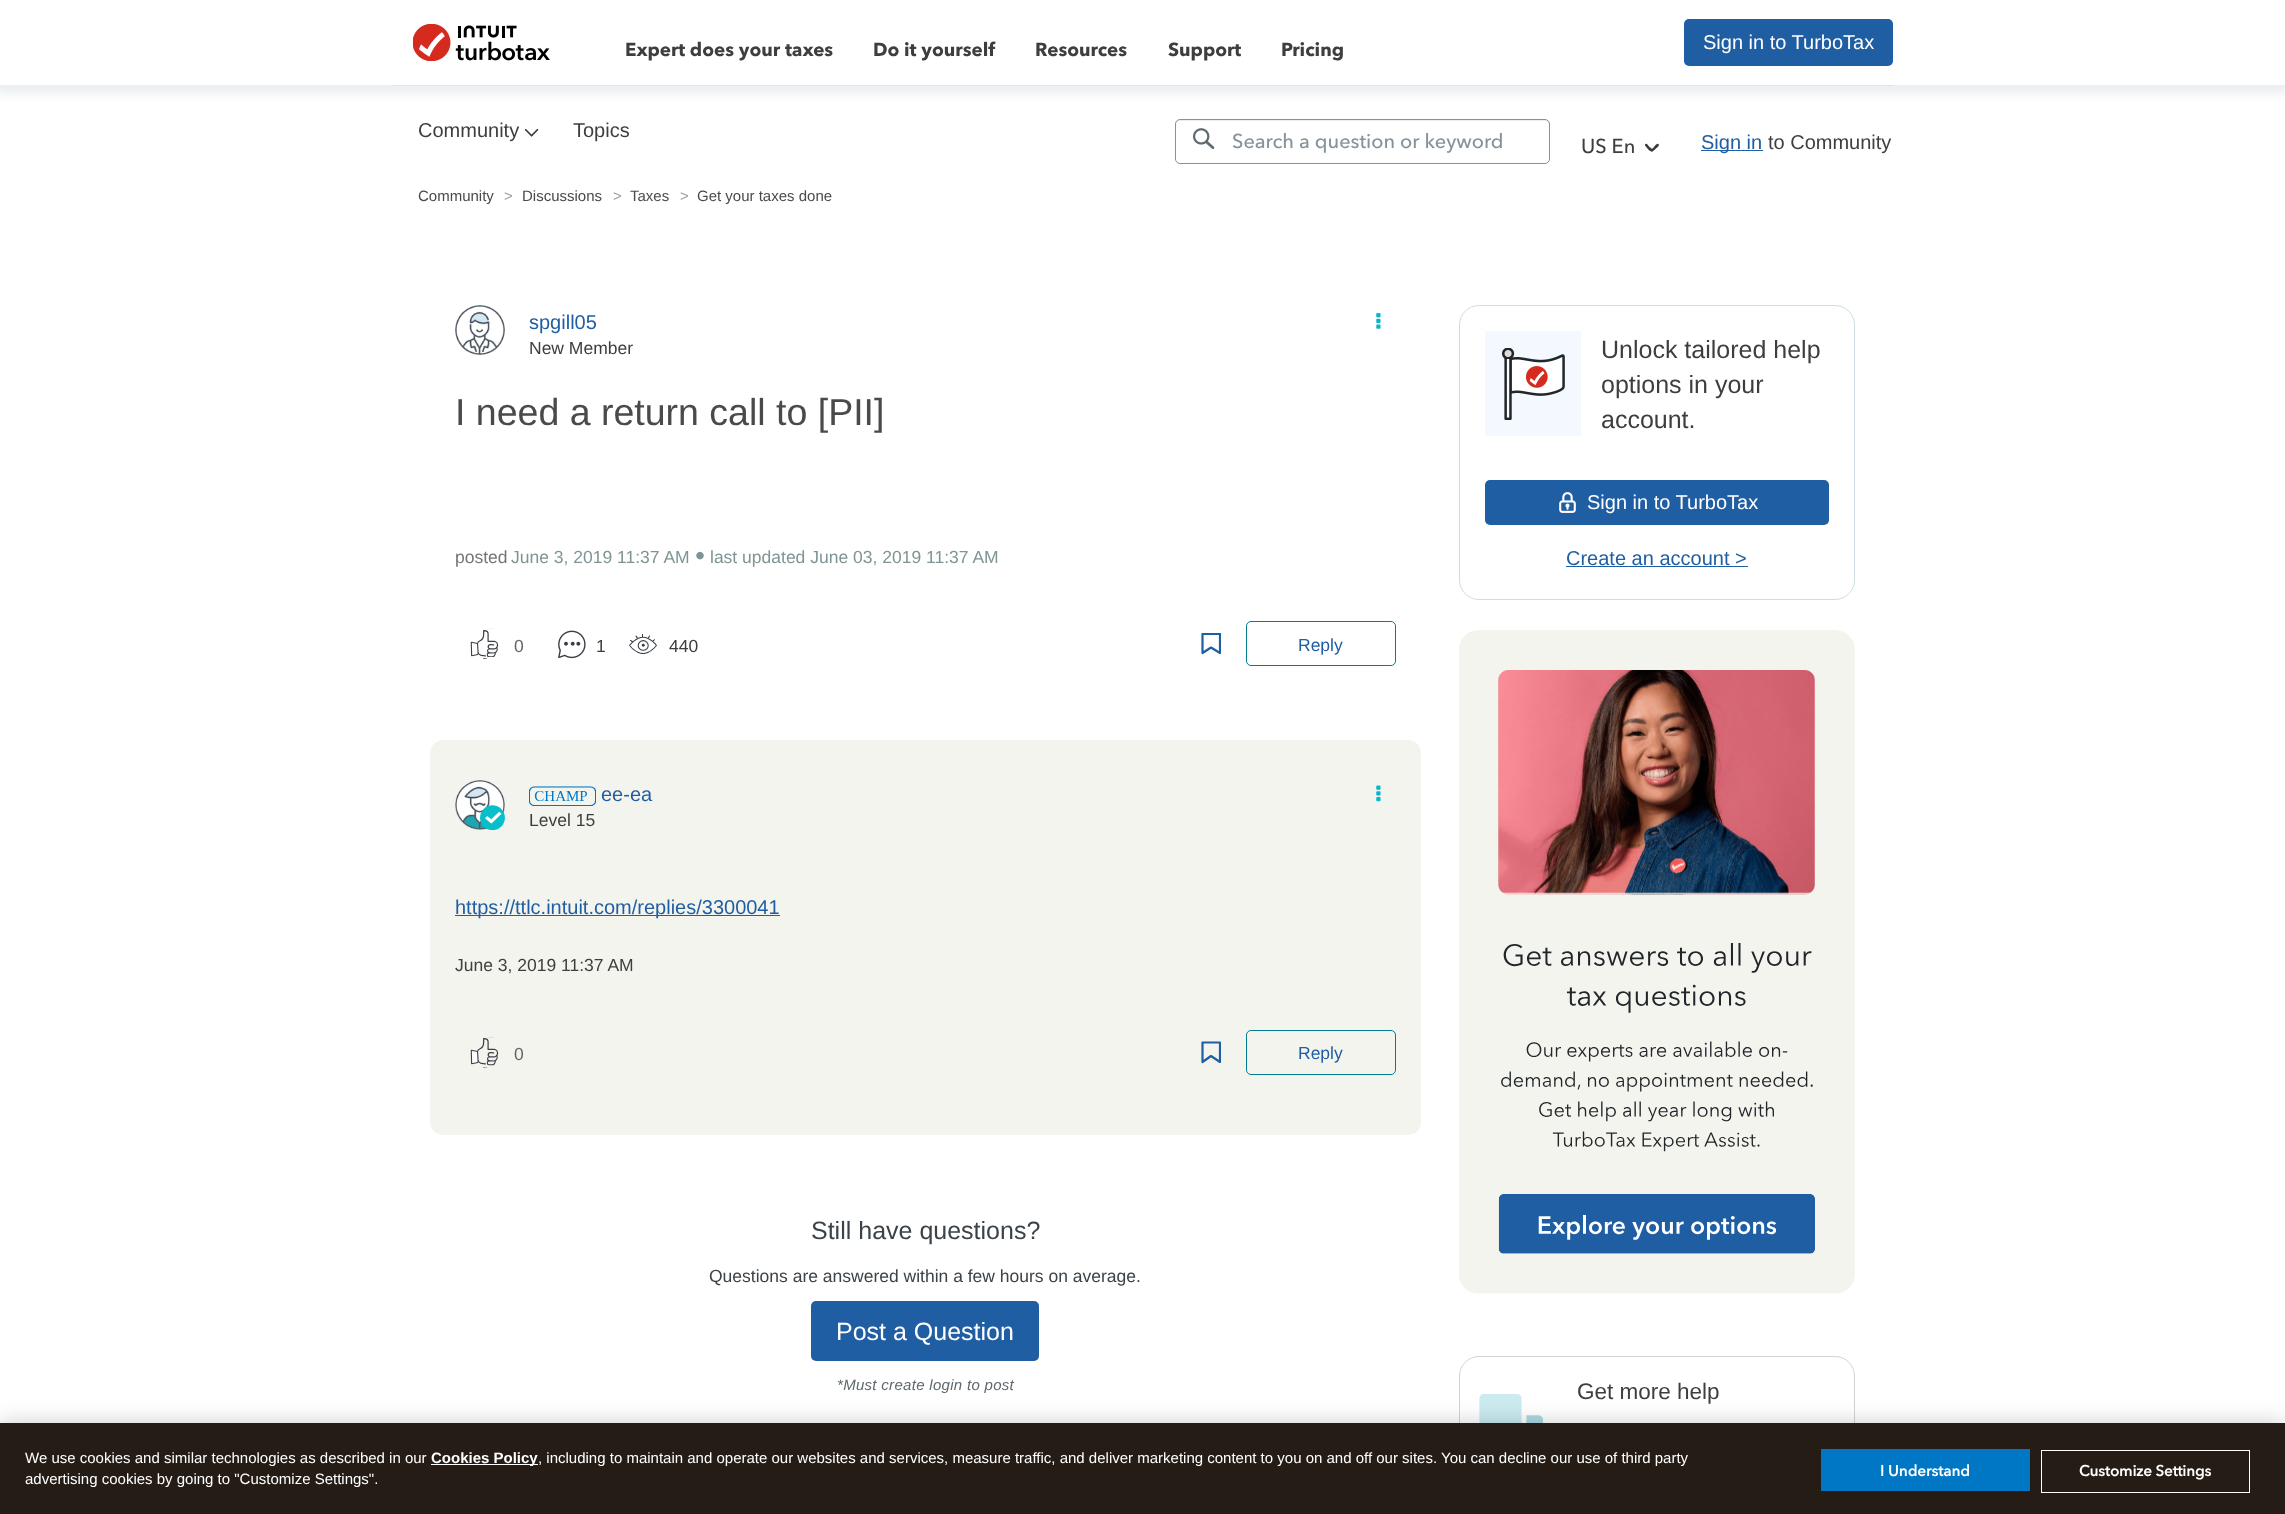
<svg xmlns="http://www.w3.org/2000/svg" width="2285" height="1514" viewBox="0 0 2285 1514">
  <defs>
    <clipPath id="clip1"><rect x="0" y="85" width="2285" height="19"/></clipPath>
    <clipPath id="clip2"><rect x="1201" y="633" width="20" height="22"/></clipPath>
    <clipPath id="clip3"><path d="M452 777H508V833H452ZM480 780C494 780 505 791 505 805C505 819 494 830 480 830C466 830 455 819 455 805C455 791 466 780 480 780Z" clip-rule="evenodd"/></clipPath>
    <clipPath id="clip4"><rect x="1201" y="1041" width="20" height="23"/></clipPath>
  </defs>
  <rect width="100%" height="100%" fill="rgb(255,255,255)"/>
  <g clip-path="url(#clip1)">
    <rect x="-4" y="1" width="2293" height="93" fill="rgb(235,239,241)" filter="blur(5px)"/>
  </g>
  <image x="413" y="24" width="137" height="37" href="pic1.png"/>
  <g font-family="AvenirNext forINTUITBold" font-size="18.75" font-weight="bold" fill="rgb(62,62,62)">
    <text x="625" y="56">Expert does your taxes</text>
    <text x="873" y="56">Do it yourself</text>
    <text x="1035" y="56">Resources</text>
    <text x="1168" y="56">Support</text>
    <text x="1281" y="56">Pricing</text>
  </g>
  <rect x="1684" y="19" width="209" height="47" rx="5" fill="rgb(32,94,163)"/>
  <text x="1703" y="49" font-family="Liberation Sans" font-size="20" fill="rgb(255,255,255)">Sign in to TurboTax</text>
  <rect x="393" y="85" width="1500" height="1" fill="rgb(217,233,236)"/>
  <text x="418" y="137" font-family="Liberation Sans" font-size="20" fill="rgb(62,62,62)">Community</text>
  <image x="524" y="128" width="15" height="9" href="pic2.png"/>
  <text x="573" y="137" font-family="Liberation Sans" font-size="20" fill="rgb(62,62,62)">Topics</text>
  <path d="M1180 121H1545C1547 121 1549 123 1549 125C1549 122 1548 120 1545 120H1180C1177 120 1176 122 1176 125C1176 123 1178 121 1180 121Z" fill="rgb(236,236,236)"/>
  <rect x="1175.5" y="119.5" width="374" height="44" rx="4.5" fill="none" stroke="rgb(133,146,153)"/>
  <image x="1193" y="128" width="22" height="21" href="pic3.png"/>
  <text x="1232" y="148" font-family="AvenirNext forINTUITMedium" font-size="20" font-weight="500" fill="rgb(133,146,153)">Search a question or keyword</text>
  <text x="1581" y="153" font-family="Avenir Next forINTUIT" font-size="20" font-weight="500" fill="rgb(62,62,62)">US En</text>
  <path d="M1647 144L1649.5 147C1650.5 147.5 1653.5 149.5 1652.5 151C1651 153 1647.5 148.5 1647 148L1645 145.5C1644.5 144.5 1646 143.5 1647 144Z" fill="rgb(57,58,61)"/>
  <path d="M1651.5 149.5L1654 147C1655 146 1656.5 143 1658.5 144C1660.5 145.5 1655.5 148.5 1655 149.5L1652.5 151.5C1651.5 152 1650.5 150.5 1651.5 149.5Z" fill="rgb(57,58,61)"/>
  <rect x="1701" y="150" width="62" height="1" fill="rgb(32,94,163)"/>
  <text x="1701" y="149" font-family="Liberation Sans" font-size="20" fill="rgb(32,94,163)">Sign in</text>
  <text x="1768" y="149" font-family="Liberation Sans" font-size="20" fill="rgb(62,62,62)">to Community</text>
  <text x="418" y="201" font-family="Liberation Sans" font-size="15" fill="rgb(74,74,74)">Community</text>
  <text x="504" y="201" font-family="Liberation Sans" font-size="15" fill="rgb(161,161,161)">&gt;</text>
  <text x="522" y="201" font-family="Liberation Sans" font-size="15" fill="rgb(74,74,74)">Discussions</text>
  <text x="613" y="201" font-family="Liberation Sans" font-size="15" fill="rgb(161,161,161)">&gt;</text>
  <text x="630" y="201" font-family="Liberation Sans" font-size="15" fill="rgb(74,74,74)">Taxes</text>
  <text x="680" y="201" font-family="Liberation Sans" font-size="15" fill="rgb(161,161,161)">&gt;</text>
  <text x="697" y="201" font-family="Liberation Sans" font-size="15" fill="rgb(74,74,74)">Get your taxes done</text>
  <rect x="455" y="305" width="50" height="50" rx="25" fill="rgb(196,196,196)" filter="blur(0.5px)"/>
  <image x="455" y="305" width="50" height="50" href="pic4.png"/>
  <text x="529" y="329" font-family="Liberation Sans" font-size="20" fill="rgb(32,94,163)">spgill05</text>
  <text x="529" y="354" font-family="Liberation Sans" font-size="17.5" fill="rgb(62,62,62)">New Member</text>
  <image x="1376" y="313" width="5" height="16" href="pic5.png"/>
  <text x="455" y="425" font-family="Liberation Sans" font-size="37.5" fill="rgb(74,74,74)">I need a return call to [PII]</text>
  <text x="455" y="563" font-family="Liberation Sans" font-size="17.5" fill="rgb(116,116,116)">posted</text>
  <text x="511" y="563" font-family="Liberation Sans" font-size="17.5" fill="rgb(127,148,148)">June 3, 2019 11:37 AM</text>
  <image x="696" y="551" width="8" height="9" href="pic6.png"/>
  <text x="710" y="563" font-family="Liberation Sans" font-size="17.5" fill="rgb(127,148,148)">last updated June 03, 2019 11:37 AM</text>
  <image x="470" y="628" width="29" height="31" href="pic7.png"/>
  <text x="514" y="652" font-family="Liberation Sans" font-size="17.5" fill="rgb(102,102,102)">0</text>
  <image x="558" y="630" width="28" height="29" href="pic8.png"/>
  <text x="596" y="652" font-family="Liberation Sans" font-size="17.5" fill="rgb(62,62,62)">1</text>
  <image x="629" y="634" width="28" height="20" href="pic9.png"/>
  <text x="669" y="652" font-family="Liberation Sans" font-size="17.5" fill="rgb(62,62,62)">440</text>
  <g clip-path="url(#clip2)">
    <path d="M1202.5 634H1220V653L1211 647.5L1202.5 653Z" fill="none" stroke="rgb(32,94,163)" stroke-width="2.2" stroke-linecap="round" stroke-linejoin="round"/>
  </g>
  <rect x="1246.5" y="621.5" width="149" height="44" rx="4.5" fill="none" stroke="rgb(3,124,143)"/>
  <text x="1298" y="651" font-family="Liberation Sans" font-size="17.5" fill="rgb(32,94,163)">Reply</text>
  <rect x="430" y="740" width="991" height="395" rx="13" fill="rgb(244,244,239)"/>
  <g clip-path="url(#clip3)">
    <rect x="455" y="780" width="50" height="50" rx="25" fill="rgb(196,196,196)" filter="blur(0.5px)"/>
  </g>
  <image x="455" y="780" width="50" height="50" href="pic10.png"/>
  <image x="480" y="805" width="25" height="25" href="pic11.png"/>
  <image x="529" y="786" width="67" height="20" href="pic12.png"/>
  <text x="601" y="801" font-family="Liberation Sans" font-size="20" fill="rgb(32,94,163)">ee-ea</text>
  <text x="529" y="826" font-family="Liberation Sans" font-size="17.5" fill="rgb(62,62,62)">Level 15</text>
  <image x="1376" y="785" width="5" height="17" href="pic13.png"/>
  <rect x="455" y="915" width="325" height="1" fill="rgb(32,94,163)"/>
  <text x="455" y="914" font-family="Liberation Sans" font-size="20" fill="rgb(32,94,163)">https://ttlc.intuit.com/replies/3300041</text>
  <text x="455" y="971" font-family="Liberation Sans" font-size="17.5" fill="rgb(62,62,62)">June 3, 2019 11:37 AM</text>
  <image x="470" y="1037" width="29" height="31" href="pic14.png"/>
  <text x="514" y="1060" font-family="Liberation Sans" font-size="17.5" fill="rgb(102,102,102)">0</text>
  <g clip-path="url(#clip4)">
    <path d="M1202.5 1042.5H1220V1062L1211 1056L1202.5 1062Z" fill="none" stroke="rgb(32,94,163)" stroke-width="2.2" stroke-linecap="round" stroke-linejoin="round"/>
  </g>
  <rect x="1246.5" y="1030.5" width="149" height="44" rx="4.5" fill="none" stroke="rgb(3,124,143)"/>
  <text x="1298" y="1059" font-family="Liberation Sans" font-size="17.5" fill="rgb(32,94,163)">Reply</text>
  <text x="811" y="1239" font-family="Liberation Sans" font-size="25" fill="rgb(60,67,72)">Still have questions?</text>
  <text x="709" y="1282" font-family="Liberation Sans" font-size="17.5" fill="rgb(60,67,72)">Questions are answered within a few hours on average.</text>
  <rect x="811" y="1301" width="228" height="60" rx="5" fill="rgb(32,94,163)"/>
  <text x="836" y="1340" font-family="Liberation Sans" font-size="25" fill="rgb(255,255,255)">Post a Question</text>
  <text x="837" y="1390" font-family="Liberation Sans" font-size="15" font-style="italic" letter-spacing="0.3" fill="rgb(93,104,111)">*Must create login to post</text>
  <rect x="1459.5" y="305.5" width="395" height="294" rx="19.5" fill="none" stroke="rgb(204,222,225)"/>
  <rect x="1485" y="331" width="96" height="105" fill="rgb(244,249,255)"/>
  <image x="1502" y="348" width="63" height="72" href="pic15.png"/>
  <g font-family="Liberation Sans" font-size="25" fill="rgb(62,62,62)">
    <text>
      <tspan x="1601" y="358">Unlock tailored help</tspan>
      <tspan x="1601" y="393">options in your</tspan>
      <tspan x="1601" y="428">account.</tspan>
    </text>
  </g>
  <rect x="1485" y="480" width="344" height="45" rx="5" fill="rgb(32,94,163)"/>
  <image x="1559" y="492" width="17" height="21" href="pic16.png"/>
  <text x="1587" y="509" font-family="Liberation Sans" font-size="20" fill="rgb(255,255,255)">Sign in to TurboTax</text>
  <text x="1566" y="565" font-family="Liberation Sans" font-size="20" fill="rgb(32,94,163)">Create an account &gt;</text>
  <rect x="1566" y="566" width="182" height="1" fill="rgb(32,94,163)"/>
  <image x="1459" y="630" width="396" height="664" href="pic17.png"/>
  <rect x="1459.5" y="1356.5" width="395" height="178" rx="19.5" fill="none" stroke="rgb(211,211,211)"/>
  <image x="1479" y="1394" width="64" height="29" href="pic18.png"/>
  <text x="1577" y="1399" font-family="Liberation Sans" font-size="22.5" fill="rgb(62,62,62)">Get more help</text>
  <rect x="0" y="1423" width="2285" height="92" fill="rgba(0,0,0,0.2)" filter="blur(11px)"/>
  <rect x="0" y="1423" width="2285" height="91" fill="rgb(36,28,21)"/>
  <text x="25" y="1463" font-family="Liberation Sans" font-size="15" fill="rgb(255,255,255)">We use cookies and similar technologies as described in our</text>
  <rect x="431" y="1464" width="107" height="1" fill="rgb(255,255,255)"/>
  <text x="431" y="1463" font-family="Liberation Sans" font-size="15" font-weight="bold" fill="rgb(255,255,255)">Cookies Policy</text>
  <g font-family="Liberation Sans" font-size="15" fill="rgb(255,255,255)">
    <text x="538" y="1463">, including to maintain and operate our websites and services, measure traffic, and deliver marketing content to you on and off our sites. You can decline our use of third party</text>
    <text x="25" y="1484">advertising cookies by going to "Customize Settings".</text>
  </g>
  <rect x="2041.5" y="1450.5" width="208" height="42" fill="none" stroke="rgb(255,255,255)"/>
  <text x="2079" y="1476" font-family="Avenir Next forINTUIT" font-size="15" font-weight="bold" fill="rgb(255,255,255)">Customize Settings</text>
  <rect x="1821" y="1449" width="209" height="42" fill="rgb(0,119,197)"/>
  <text x="1880" y="1476" font-family="Avenir Next forINTUIT" font-size="15" font-weight="bold" letter-spacing="0.1" fill="rgb(255,255,255)">I Understand</text>
</svg>
